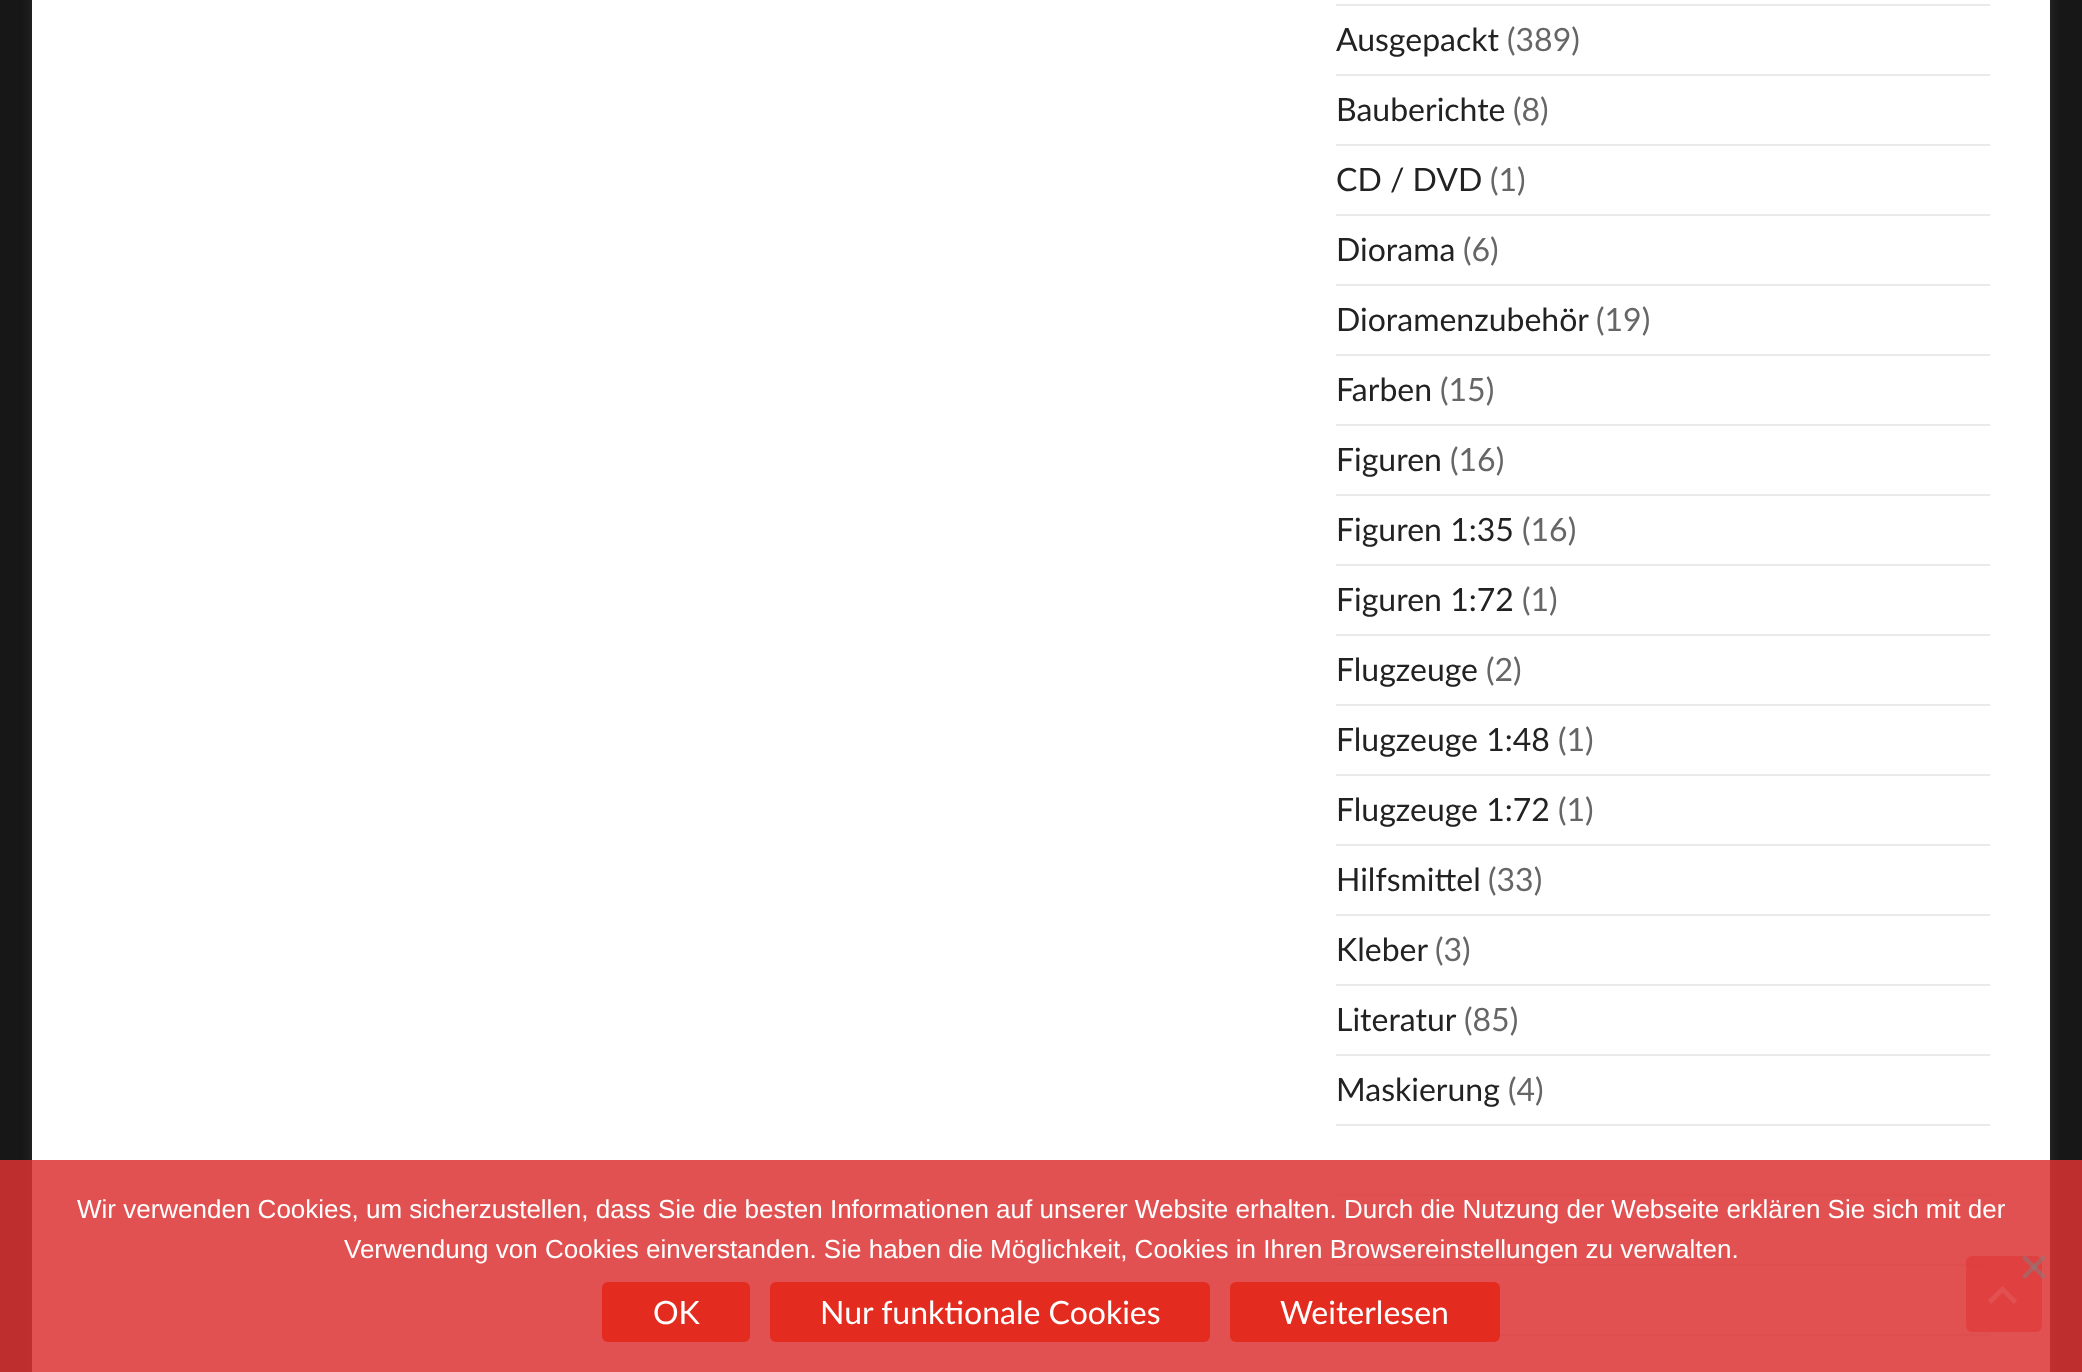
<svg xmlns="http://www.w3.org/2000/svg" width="2082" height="1372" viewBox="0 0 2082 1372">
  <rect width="100%" height="100%" fill="rgb(23,23,23)"/>
  <rect x="32" y="-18" width="2018" height="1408" fill="rgba(100,100,100,0.3)" filter="blur(6px)"/>
  <rect x="32" y="0" width="2018" height="1372" fill="rgb(255,255,255)"/>
  <rect x="1336" y="4" width="654" height="2" fill="rgb(234,234,234)"/>
  <rect x="1336" y="74" width="654" height="2" fill="rgb(234,234,234)"/>
  <text x="1336" y="51" font-family="Lato" font-size="32" fill="rgb(34,34,34)">Ausgepackt</text>
  <text x="1507" y="51" font-family="Lato" font-size="32" fill="rgb(102,102,102)">(389)</text>
  <rect x="1336" y="144" width="654" height="2" fill="rgb(234,234,234)"/>
  <text x="1336" y="121" font-family="Lato" font-size="32" fill="rgb(34,34,34)">Bauberichte</text>
  <text x="1513" y="121" font-family="Lato" font-size="32" fill="rgb(102,102,102)">(8)</text>
  <rect x="1336" y="214" width="654" height="2" fill="rgb(234,234,234)"/>
  <text x="1336" y="191" font-family="Lato" font-size="32" fill="rgb(34,34,34)">CD / DVD</text>
  <text x="1490" y="191" font-family="Lato" font-size="32" fill="rgb(102,102,102)">(1)</text>
  <rect x="1336" y="284" width="654" height="2" fill="rgb(234,234,234)"/>
  <text x="1336" y="261" font-family="Lato" font-size="32" fill="rgb(34,34,34)">Diorama</text>
  <text x="1463" y="261" font-family="Lato" font-size="32" fill="rgb(102,102,102)">(6)</text>
  <rect x="1336" y="354" width="654" height="2" fill="rgb(234,234,234)"/>
  <text x="1336" y="331" font-family="Lato" font-size="32" fill="rgb(34,34,34)">Dioramenzubehör</text>
  <text x="1596" y="331" font-family="Lato" font-size="32" fill="rgb(102,102,102)">(19)</text>
  <rect x="1336" y="424" width="654" height="2" fill="rgb(234,234,234)"/>
  <text x="1336" y="401" font-family="Lato" font-size="32" fill="rgb(34,34,34)">Farben</text>
  <text x="1440" y="401" font-family="Lato" font-size="32" fill="rgb(102,102,102)">(15)</text>
  <rect x="1336" y="494" width="654" height="2" fill="rgb(234,234,234)"/>
  <text x="1336" y="471" font-family="Lato" font-size="32" fill="rgb(34,34,34)">Figuren</text>
  <text x="1450" y="471" font-family="Lato" font-size="32" fill="rgb(102,102,102)">(16)</text>
  <rect x="1336" y="564" width="654" height="2" fill="rgb(234,234,234)"/>
  <text x="1336" y="541" font-family="Lato" font-size="32" fill="rgb(34,34,34)">Figuren 1:35</text>
  <text x="1522" y="541" font-family="Lato" font-size="32" fill="rgb(102,102,102)">(16)</text>
  <rect x="1336" y="634" width="654" height="2" fill="rgb(234,234,234)"/>
  <text x="1336" y="611" font-family="Lato" font-size="32" fill="rgb(34,34,34)">Figuren 1:72</text>
  <text x="1522" y="611" font-family="Lato" font-size="32" fill="rgb(102,102,102)">(1)</text>
  <rect x="1336" y="704" width="654" height="2" fill="rgb(234,234,234)"/>
  <text x="1336" y="681" font-family="Lato" font-size="32" fill="rgb(34,34,34)">Flugzeuge</text>
  <text x="1486" y="681" font-family="Lato" font-size="32" fill="rgb(102,102,102)">(2)</text>
  <rect x="1336" y="774" width="654" height="2" fill="rgb(234,234,234)"/>
  <text x="1336" y="751" font-family="Lato" font-size="32" fill="rgb(34,34,34)">Flugzeuge 1:48</text>
  <text x="1558" y="751" font-family="Lato" font-size="32" fill="rgb(102,102,102)">(1)</text>
  <rect x="1336" y="844" width="654" height="2" fill="rgb(234,234,234)"/>
  <text x="1336" y="821" font-family="Lato" font-size="32" fill="rgb(34,34,34)">Flugzeuge 1:72</text>
  <text x="1558" y="821" font-family="Lato" font-size="32" fill="rgb(102,102,102)">(1)</text>
  <rect x="1336" y="914" width="654" height="2" fill="rgb(234,234,234)"/>
  <text x="1336" y="891" font-family="Lato" font-size="32" fill="rgb(34,34,34)">Hilfsmittel</text>
  <text x="1488" y="891" font-family="Lato" font-size="32" fill="rgb(102,102,102)">(33)</text>
  <rect x="1336" y="984" width="654" height="2" fill="rgb(234,234,234)"/>
  <text x="1336" y="961" font-family="Lato" font-size="32" fill="rgb(34,34,34)">Kleber</text>
  <text x="1435" y="961" font-family="Lato" font-size="32" fill="rgb(102,102,102)">(3)</text>
  <rect x="1336" y="1054" width="654" height="2" fill="rgb(234,234,234)"/>
  <text x="1336" y="1031" font-family="Lato" font-size="32" fill="rgb(34,34,34)">Literatur</text>
  <text x="1464" y="1031" font-family="Lato" font-size="32" fill="rgb(102,102,102)">(85)</text>
  <rect x="1336" y="1124" width="654" height="2" fill="rgb(234,234,234)"/>
  <text x="1336" y="1101" font-family="Lato" font-size="32" fill="rgb(34,34,34)">Maskierung</text>
  <text x="1508" y="1101" font-family="Lato" font-size="32" fill="rgb(102,102,102)">(4)</text>
  <rect x="1336" y="1194" width="654" height="2" fill="rgb(234,234,234)"/>
  <rect x="1336" y="1264" width="654" height="2" fill="rgb(234,234,234)"/>
  <rect x="1500" y="1334" width="490" height="2" fill="rgb(234,234,234)"/>
  <rect x="1966" y="1256" width="76" height="76" rx="6" fill="rgba(227,44,31,0.5)"/>
  <path d="M2014 1304L2002.5 1292.5L1991 1304L1988 1300.5L2002.5 1286L2017 1300.5Z" fill="rgb(255,255,255)"/>
  <rect x="0" y="1160" width="2082" height="212" fill="rgba(221,51,51,0.85)"/>
  <g font-family="Liberation Sans" font-size="26" fill="rgb(255,255,255)">
    <text x="77" y="1218">Wir verwenden Cookies, um sicherzustellen, dass Sie die besten Informationen auf unserer Website erhalten. Durch die Nutzung der Webseite erklären Sie sich mit der</text>
    <text x="344" y="1258">Verwendung von Cookies einverstanden. Sie haben die Möglichkeit, Cookies in Ihren Browsereinstellungen zu verwalten.</text>
  </g>
  <path d="M2043 1255L2046 1258L2025 1279L2022 1276Z" fill="rgba(128,128,128,0.5)"/>
  <path d="M2022 1258L2025 1255L2046 1276L2043 1279Z" fill="rgba(128,128,128,0.5)"/>
  <rect x="602" y="1282" width="148" height="60" rx="6" fill="rgb(227,44,31)"/>
  <text x="653" y="1324" font-family="Lato" font-size="32" fill="rgb(255,255,255)">OK</text>
  <rect x="770" y="1282" width="440" height="60" rx="6" fill="rgb(227,44,31)"/>
  <text x="820" y="1324" font-family="Lato" font-size="32" fill="rgb(255,255,255)">Nur funktionale Cookies</text>
  <rect x="1230" y="1282" width="270" height="60" rx="6" fill="rgb(227,44,31)"/>
  <text x="1280" y="1324" font-family="Lato" font-size="32" fill="rgb(255,255,255)">Weiterlesen</text>
</svg>
